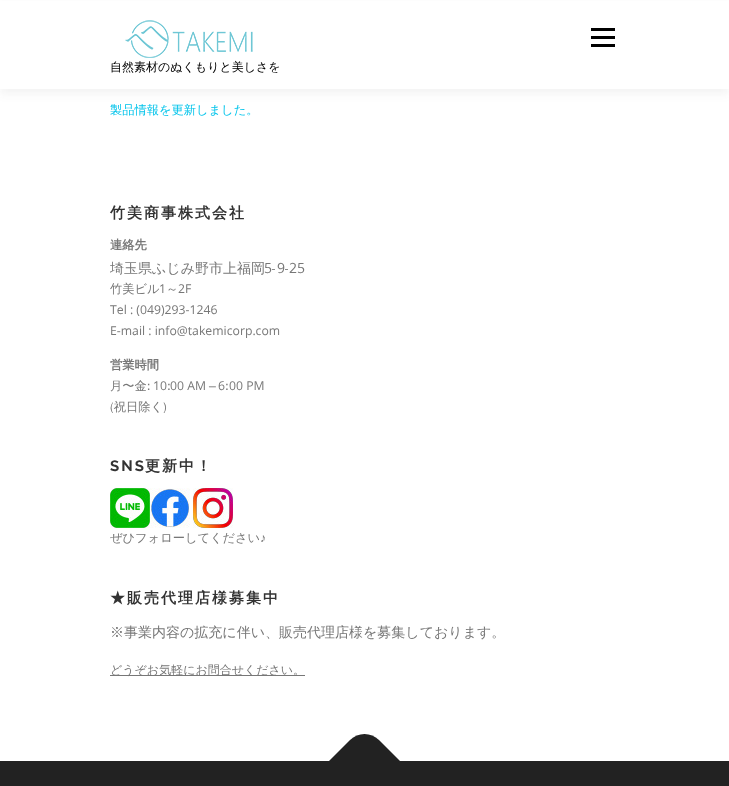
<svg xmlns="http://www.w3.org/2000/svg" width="729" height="786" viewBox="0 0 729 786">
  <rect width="100%" height="100%" fill="rgb(255,255,255)"/>
  <rect x="0" y="5" width="729" height="89" fill="rgba(50,50,50,0.06)" filter="blur(5px)"/>
  <rect x="0" y="1" width="729" height="88" fill="rgb(255,255,255)"/>
  <rect x="591" y="36" width="24" height="3" fill="rgb(0,0,0)"/>
  <rect x="591" y="28" width="24" height="3" fill="rgb(0,0,0)"/>
  <rect x="591" y="44" width="24" height="3" fill="rgb(0,0,0)"/>
  <image x="125" y="20" width="128" height="38" href="pic1.png"/>
  <text x="110" y="71" font-family="WenQuanYi Zen Hei" font-size="12" font-weight="500" fill="rgb(0,0,0)">自然素材のぬくもりと美しさを</text>
  <text x="110" y="114" font-family="WenQuanYi Zen Hei" font-size="12.25" font-weight="500" fill="rgb(3,196,235)">製品情報を更新しました。</text>
  <text x="110" y="218" font-family="WenQuanYi Zen Hei" font-size="15" font-weight="bold" letter-spacing="2" fill="rgb(51,51,51)">竹美商事株式会社</text>
  <text x="110" y="249" font-family="WenQuanYi Zen Hei" font-size="12.25" font-weight="bold" fill="rgb(119,119,119)">連絡先</text>
  <text x="110" y="273" font-family="WenQuanYi Zen Hei" font-size="14" font-weight="500" fill="rgb(119,119,119)">埼玉県ふじみ野市上福岡</text>
  <text x="264" y="273" font-family="Open Sans" font-size="14" fill="rgb(119,119,119)">5</text>
  <text x="272" y="273" font-family="WenQuanYi Zen Hei" font-size="14" font-weight="500" fill="rgb(119,119,119)">-</text>
  <text x="277" y="273" font-family="Open Sans" font-size="14" fill="rgb(119,119,119)">9</text>
  <text x="285" y="273" font-family="WenQuanYi Zen Hei" font-size="14" font-weight="500" fill="rgb(119,119,119)">-</text>
  <text x="289" y="273" font-family="Open Sans" font-size="14" fill="rgb(119,119,119)">25</text>
  <text x="110" y="293" font-family="WenQuanYi Zen Hei" font-size="12.25" font-weight="500" fill="rgb(119,119,119)">竹美ビル</text>
  <text x="159" y="293" font-family="Open Sans" font-size="12.25" fill="rgb(119,119,119)">1</text>
  <text x="166" y="293" font-family="WenQuanYi Zen Hei" font-size="12.25" font-weight="500" fill="rgb(119,119,119)">～</text>
  <g font-family="Open Sans" font-size="12.25" fill="rgb(119,119,119)">
    <text x="178" y="293">2F</text>
    <text>
      <tspan x="110" y="314">Tel : (049)293-1246</tspan>
      <tspan x="110" y="335">E-mail : info@takemicorp.com</tspan>
    </text>
  </g>
  <text x="110" y="369" font-family="WenQuanYi Zen Hei" font-size="12.25" font-weight="bold" fill="rgb(119,119,119)">営業時間</text>
  <text x="110" y="390" font-family="WenQuanYi Zen Hei" font-size="12.25" font-weight="500" fill="rgb(119,119,119)">月〜金:</text>
  <text x="153" y="390" font-family="Open Sans" font-size="12.25" fill="rgb(119,119,119)">10</text>
  <text x="167" y="390" font-family="WenQuanYi Zen Hei" font-size="12.25" font-weight="500" fill="rgb(119,119,119)">:</text>
  <text x="170" y="390" font-family="Open Sans" font-size="12.25" fill="rgb(119,119,119)">00 AM</text>
  <text x="209" y="390" font-family="WenQuanYi Zen Hei" font-size="12.25" font-weight="500" fill="rgb(119,119,119)">–</text>
  <text x="218" y="390" font-family="Open Sans" font-size="12.25" fill="rgb(119,119,119)">6</text>
  <text x="225" y="390" font-family="WenQuanYi Zen Hei" font-size="12.25" font-weight="500" fill="rgb(119,119,119)">:</text>
  <text x="229" y="390" font-family="Open Sans" font-size="12.25" fill="rgb(119,119,119)">00 PM</text>
  <text x="110" y="411" font-family="WenQuanYi Zen Hei" font-size="12.25" font-weight="500" fill="rgb(119,119,119)">(祝日除く)</text>
  <text x="110" y="471" font-family="Raleway" font-size="15" font-weight="bold" letter-spacing="2" fill="rgb(51,51,51)">SNS</text>
  <text x="145" y="471" font-family="WenQuanYi Zen Hei" font-size="15" font-weight="bold" letter-spacing="2" fill="rgb(51,51,51)">更新中！</text>
  <image x="110" y="488" width="40" height="40" href="pic2.png"/>
  <image x="150" y="488" width="40" height="40" href="pic3.png"/>
  <image x="193" y="488" width="40" height="40" href="pic4.png"/>
  <text x="110" y="542" font-family="WenQuanYi Zen Hei" font-size="12.25" font-weight="500" fill="rgb(119,119,119)">ぜひフォローしてください</text>
  <text x="260" y="542" font-family="Liberation Sans" font-size="12.25" fill="rgb(119,119,119)">♪</text>
  <text x="110" y="603" font-family="WenQuanYi Zen Hei" font-size="15" font-weight="bold" letter-spacing="2" fill="rgb(51,51,51)">★販売代理店様募集中</text>
  <text x="110" y="637" font-family="WenQuanYi Zen Hei" font-size="14" font-weight="500" fill="rgb(119,119,119)">※事業内容の拡充に伴い、販売代理店様を募集しております。</text>
  <rect x="110" y="675" width="195" height="1" fill="rgb(119,119,119)"/>
  <text x="110" y="674" font-family="WenQuanYi Zen Hei" font-size="12" font-weight="500" fill="rgb(119,119,119)">どうぞお気軽にお問合せください。</text>
  <rect x="0" y="761" width="729" height="25" fill="rgb(34,34,34)"/>
  <path d="M329 761L350 740C358 732 371 732 379 740L400 761L365 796Z" fill="rgb(34,34,34)"/>
</svg>
